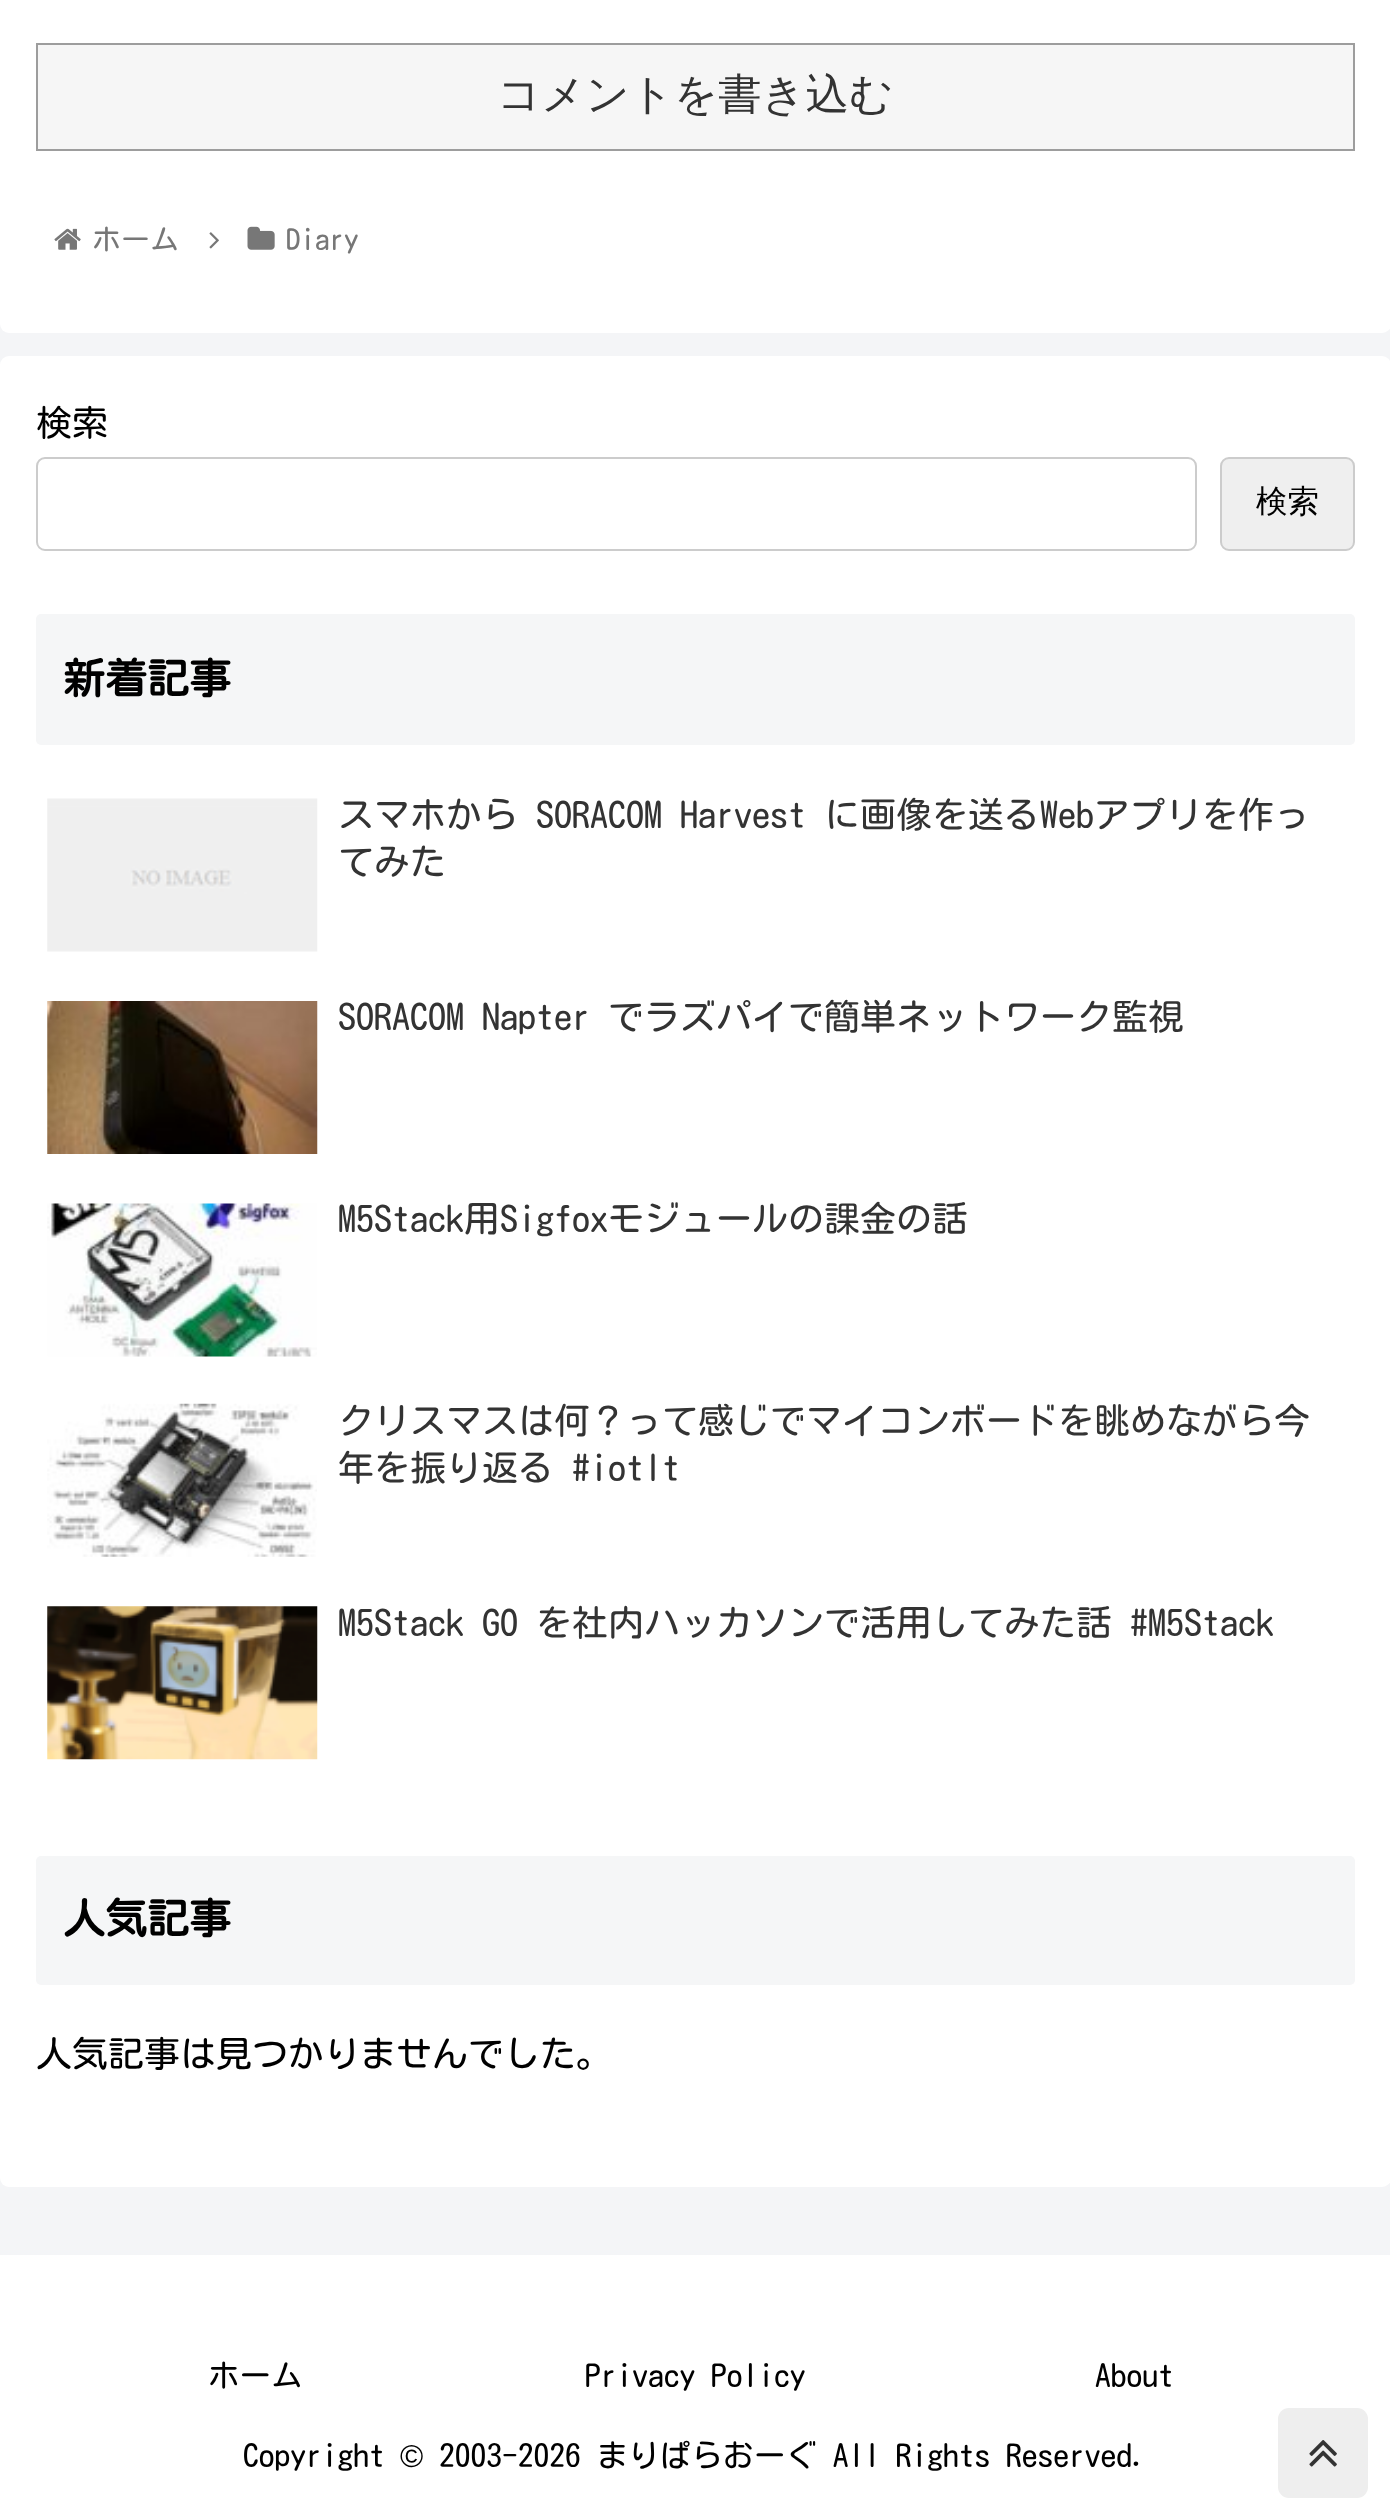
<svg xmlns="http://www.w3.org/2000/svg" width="1390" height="2519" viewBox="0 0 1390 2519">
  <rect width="100%" height="100%" fill="rgb(244,245,247)"/>
  <rect x="0" y="-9" width="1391" height="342" rx="9" fill="rgb(255,255,255)"/>
  <rect x="37" y="44" width="1317" height="106" fill="rgb(246,246,246)" stroke="rgb(157,157,157)" stroke-width="2"/>
  <text x="497" y="109" font-family="WenQuanYi Zen Hei" font-size="43.25" font-weight="500" fill="rgb(51,51,51)">コメントを書き込む</text>
  <image x="54" y="228" width="27" height="22" href="pic1.png"/>
  <text x="92" y="250" font-family="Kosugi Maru" font-size="29" fill="rgb(119,119,119)">ホーム</text>
  <image x="209" y="232" width="10" height="17" href="pic2.png"/>
  <image x="247" y="226" width="28" height="24" href="pic3.png"/>
  <text x="286" y="250" font-family="Kosugi Maru" font-size="29" fill="rgb(119,119,119)">Diary</text>
  <rect x="0" y="356" width="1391" height="1831" rx="9" fill="rgb(255,255,255)"/>
  <text x="36" y="436" font-family="Kosugi Maru" font-size="36" fill="rgb(0,0,0)">検索</text>
  <rect x="37" y="458" width="1159" height="92" rx="8" fill="none" stroke="rgb(204,204,204)" stroke-width="2"/>
  <rect x="1221" y="458" width="133" height="92" rx="8" fill="rgb(239,239,239)" stroke="rgb(204,204,204)" stroke-width="2"/>
  <text x="1256" y="512" font-family="WenQuanYi Zen Hei" font-size="31.5" font-weight="500" fill="rgb(0,0,0)">検索</text>
  <rect x="36" y="614" width="1319" height="131" rx="5" fill="rgb(245,246,247)"/>
  <text x="63" y="694" font-family="Kosugi Maru" font-size="42" font-weight="bold" fill="rgb(0,0,0)">新着記事</text>
  <image x="47" y="798" width="271" height="154" href="pic4.png"/>
  <g font-family="Kosugi Maru" font-size="36" fill="rgb(51,51,51)">
    <text>
      <tspan x="338" y="828">スマホから SORACOM Harvest に画像を送るWebアプリを作っ</tspan>
      <tspan x="338" y="875">てみた</tspan>
    </text>
  </g>
  <image x="47" y="1001" width="271" height="153" href="pic5.png"/>
  <text x="338" y="1030" font-family="Kosugi Maru" font-size="36" fill="rgb(51,51,51)">SORACOM Napter でラズパイで簡単ネットワーク監視</text>
  <image x="47" y="1203" width="270" height="154" href="pic6.png"/>
  <text x="338" y="1232" font-family="Kosugi Maru" font-size="36" fill="rgb(51,51,51)">M5Stack用Sigfoxモジュールの課金の話</text>
  <image x="47" y="1403" width="270" height="154" href="pic7.png"/>
  <g font-family="Kosugi Maru" font-size="36" fill="rgb(51,51,51)">
    <text>
      <tspan x="338" y="1434">クリスマスは何？って感じでマイコンボードを眺めながら今</tspan>
      <tspan x="338" y="1481">年を振り返る #iotlt</tspan>
    </text>
  </g>
  <image x="47" y="1606" width="271" height="154" href="pic8.png"/>
  <text x="338" y="1636" font-family="Kosugi Maru" font-size="36" fill="rgb(51,51,51)">M5Stack GO を社内ハッカソンで活用してみた話 #M5Stack</text>
  <rect x="36" y="1856" width="1319" height="129" rx="5" fill="rgb(245,246,247)"/>
  <text x="63" y="1934" font-family="Kosugi Maru" font-size="42" font-weight="bold" fill="rgb(0,0,0)">人気記事</text>
  <text x="36" y="2067" font-family="Kosugi Maru" font-size="36" fill="rgb(0,0,0)">人気記事は見つかりませんでした。</text>
  <rect x="0" y="2255" width="1390" height="264" fill="rgb(255,255,255)"/>
  <g font-family="Kosugi Maru" font-size="31.5" fill="rgb(0,0,0)">
    <text x="208" y="2387">ホーム</text>
    <text x="585" y="2387">Privacy Policy</text>
    <text x="1095" y="2387">About</text>
    <text x="243" y="2467">Copyright</text>
  </g>
  <text x="400" y="2467" font-family="Liberation Sans" font-size="31.5" fill="rgb(0,0,0)">©</text>
  <text x="439" y="2467" font-family="Kosugi Maru" font-size="31.5" fill="rgb(0,0,0)">2003-2026 まりぱらおーぐ All Rights Reserved.</text>
  <rect x="1278" y="2408" width="90" height="90" rx="11" fill="rgb(238,238,238)"/>
  <image x="1309" y="2440" width="28" height="27" href="pic9.png"/>
</svg>
